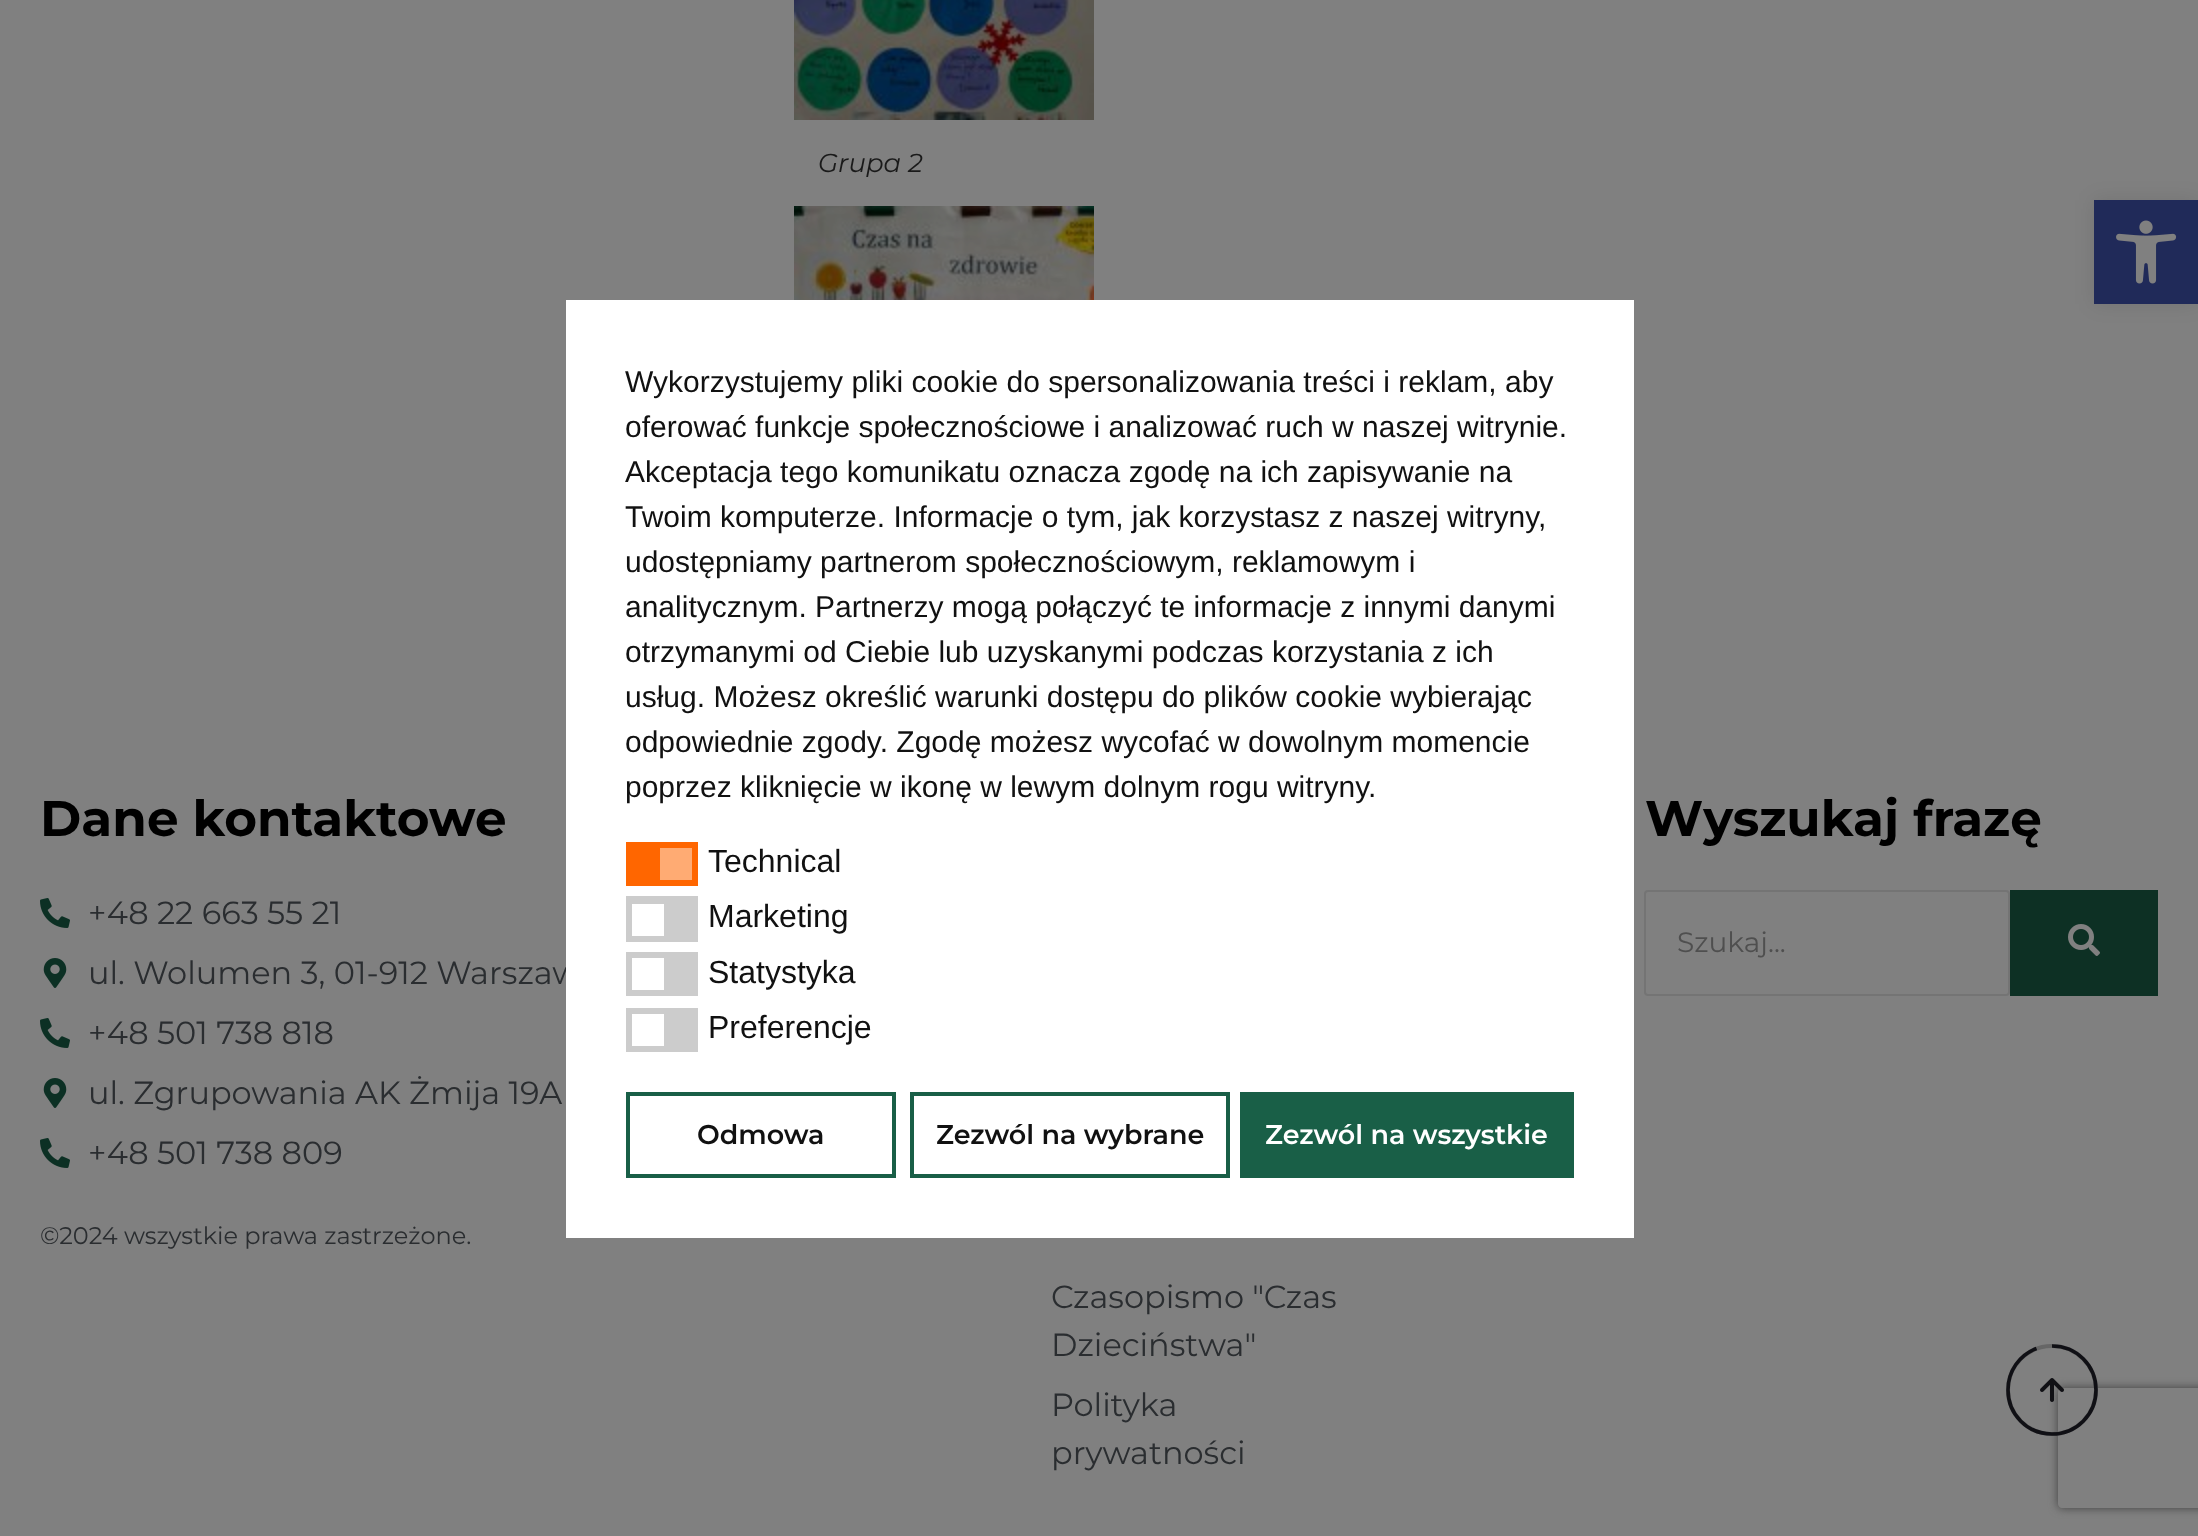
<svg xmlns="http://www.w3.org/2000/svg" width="2198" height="1536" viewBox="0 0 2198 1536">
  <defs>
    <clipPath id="clip1"><path d="M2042 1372H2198V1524H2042ZM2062 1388H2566C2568 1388 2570 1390 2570 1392V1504C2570 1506 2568 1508 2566 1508H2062C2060 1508 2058 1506 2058 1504V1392C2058 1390 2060 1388 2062 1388Z" clip-rule="evenodd"/></clipPath>
  </defs>
  <rect width="100%" height="100%" fill="rgb(128,128,128)"/>
  <image x="794" y="0" width="300" height="120" href="pic1.png"/>
  <text x="818" y="172" font-family="Montserrat" font-size="26" font-style="italic" fill="rgb(26,26,26)">Grupa 2</text>
  <image x="794" y="206" width="300" height="94" href="pic2.png"/>
  <rect x="2094" y="200" width="104" height="104" fill="rgba(0,0,0,0.1)" filter="blur(10px)"/>
  <rect x="2094" y="200" width="104" height="104" fill="rgb(32,42,89)"/>
  <image x="2116" y="220" width="61" height="64" href="pic3.png"/>
  <text x="88" y="984" font-family="Montserrat" font-size="32" fill="rgb(42,45,48)">ul. Wolumen 3, 01-912 Warszaw</text>
  <rect x="566" y="300" width="1068" height="938" fill="rgb(255,255,255)"/>
  <g font-family="Liberation Sans" font-size="30" fill="rgb(17,17,17)">
    <text>
      <tspan x="625" y="392">Wykorzystujemy pliki cookie do spersonalizowania treści i reklam, aby</tspan>
      <tspan x="625" y="437">oferować funkcje społecznościowe i analizować ruch w naszej witrynie.</tspan>
      <tspan x="625" y="482">Akceptacja tego komunikatu oznacza zgodę na ich zapisywanie na</tspan>
      <tspan x="625" y="527">Twoim komputerze. Informacje o tym, jak korzystasz z naszej witryny,</tspan>
      <tspan x="625" y="572">udostępniamy partnerom społecznościowym, reklamowym i</tspan>
      <tspan x="625" y="617">analitycznym. Partnerzy mogą połączyć te informacje z innymi danymi</tspan>
      <tspan x="625" y="662">otrzymanymi od Ciebie lub uzyskanymi podczas korzystania z ich</tspan>
      <tspan x="625" y="707">usług. Możesz określić warunki dostępu do plików cookie wybierając</tspan>
      <tspan x="625" y="752">odpowiednie zgody. Zgodę możesz wycofać w dowolnym momencie</tspan>
      <tspan x="625" y="797">poprzez kliknięcie w ikonę w lewym dolnym rogu witryny.</tspan>
    </text>
  </g>
  <rect x="626" y="842" width="72" height="44" fill="rgb(255,102,0)"/>
  <rect x="660" y="848" width="32" height="32" fill="rgb(255,171,115)"/>
  <text x="708" y="872" font-family="Liberation Sans" font-size="32" fill="rgb(17,17,17)">Technical</text>
  <rect x="626" y="896" width="72" height="46" fill="rgb(204,204,204)"/>
  <rect x="632" y="904" width="32" height="32" fill="rgb(255,255,255)"/>
  <text x="708" y="927" font-family="Liberation Sans" font-size="32" fill="rgb(17,17,17)">Marketing</text>
  <rect x="626" y="952" width="72" height="44" fill="rgb(204,204,204)"/>
  <rect x="632" y="958" width="32" height="32" fill="rgb(255,255,255)"/>
  <text x="708" y="983" font-family="Liberation Sans" font-size="32" fill="rgb(17,17,17)">Statystyka</text>
  <rect x="626" y="1008" width="72" height="44" fill="rgb(204,204,204)"/>
  <rect x="632" y="1014" width="32" height="32" fill="rgb(255,255,255)"/>
  <text x="708" y="1038" font-family="Liberation Sans" font-size="32" fill="rgb(17,17,17)">Preferencje</text>
  <rect x="628" y="1094" width="266" height="82" fill="none" stroke="rgb(25,95,71)" stroke-width="4"/>
  <text x="697" y="1144" font-family="Montserrat" font-size="27" font-weight="600" fill="rgb(17,17,17)">Odmowa</text>
  <rect x="912" y="1094" width="316" height="82" fill="none" stroke="rgb(25,95,71)" stroke-width="4"/>
  <text x="936" y="1144" font-family="Montserrat" font-size="27" font-weight="600" fill="rgb(17,17,17)">Zezwól na wybrane</text>
  <rect x="1240" y="1092" width="334" height="86" fill="rgb(25,95,71)"/>
  <text x="1265" y="1144" font-family="Montserrat" font-size="27" font-weight="600" fill="rgb(255,255,255)">Zezwól na wszystkie</text>
  <text x="40" y="836" font-family="Montserrat" font-size="50" font-weight="bold" fill="rgb(0,0,0)">Dane kontaktowe</text>
  <image x="40" y="898" width="30" height="30" href="pic4.png"/>
  <text x="88" y="924" font-family="Montserrat" font-size="32" fill="rgb(42,45,48)">+48 22 663 55 21</text>
  <image x="43" y="958" width="24" height="30" href="pic5.png"/>
  <image x="40" y="1018" width="30" height="30" href="pic4.png"/>
  <text x="88" y="1044" font-family="Montserrat" font-size="32" fill="rgb(42,45,48)">+48 501 738 818</text>
  <image x="43" y="1078" width="24" height="30" href="pic5.png"/>
  <text x="88" y="1104" font-family="Montserrat" font-size="32" fill="rgb(42,45,48)">ul. Zgrupowania AK Żmija 19A</text>
  <image x="40" y="1138" width="30" height="30" href="pic4.png"/>
  <text x="88" y="1164" font-family="Montserrat" font-size="32" fill="rgb(42,45,48)">+48 501 738 809</text>
  <text x="40" y="1244" font-family="Montserrat" font-size="24" fill="rgb(42,45,48)">©2024 wszystkie prawa zastrzeżone.</text>
  <text x="1645" y="836" font-family="Montserrat" font-size="50" font-weight="bold" fill="rgb(0,0,0)">Wyszukaj frazę</text>
  <rect x="1645" y="891" width="364" height="104" rx="3" fill="none" stroke="rgb(116,116,116)" stroke-width="2"/>
  <text x="1677" y="952" font-family="Montserrat" font-size="28" fill="rgb(79,79,79)">Szukaj...</text>
  <rect x="2010" y="890" width="148" height="106" fill="rgb(13,48,36)"/>
  <image x="2068" y="924" width="32" height="32" href="pic6.png"/>
  <g font-family="Montserrat" font-size="32" fill="rgb(42,45,48)">
    <text>
      <tspan x="1051" y="1308">Czasopismo "Czas</tspan>
      <tspan x="1051" y="1356">Dzieciństwa"</tspan>
      <tspan x="1051" y="1416">Polityka</tspan>
      <tspan x="1051" y="1464">prywatności</tspan>
    </text>
  </g>
  <g clip-path="url(#clip1)">
    <rect x="2058" y="1388" width="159" height="120" rx="4" fill="rgb(64,64,64)" filter="blur(5px)"/>
  </g>
  <circle cx="2052" cy="1390" r="44" fill="none" stroke="rgb(102,102,102)" stroke-width="4"/>
  <path d="M2052 1346C2076.5 1346 2096 1365.5 2096 1390C2096 1414.5 2076.5 1434 2052 1434C2027.5 1434 2008 1414.5 2008 1390C2008 1371 2019.5 1355 2036.5 1348.5" fill="none" stroke="rgb(16,16,21)" stroke-width="3.6"/>
  <image x="2040" y="1378" width="24" height="24" href="pic7.png"/>
</svg>
